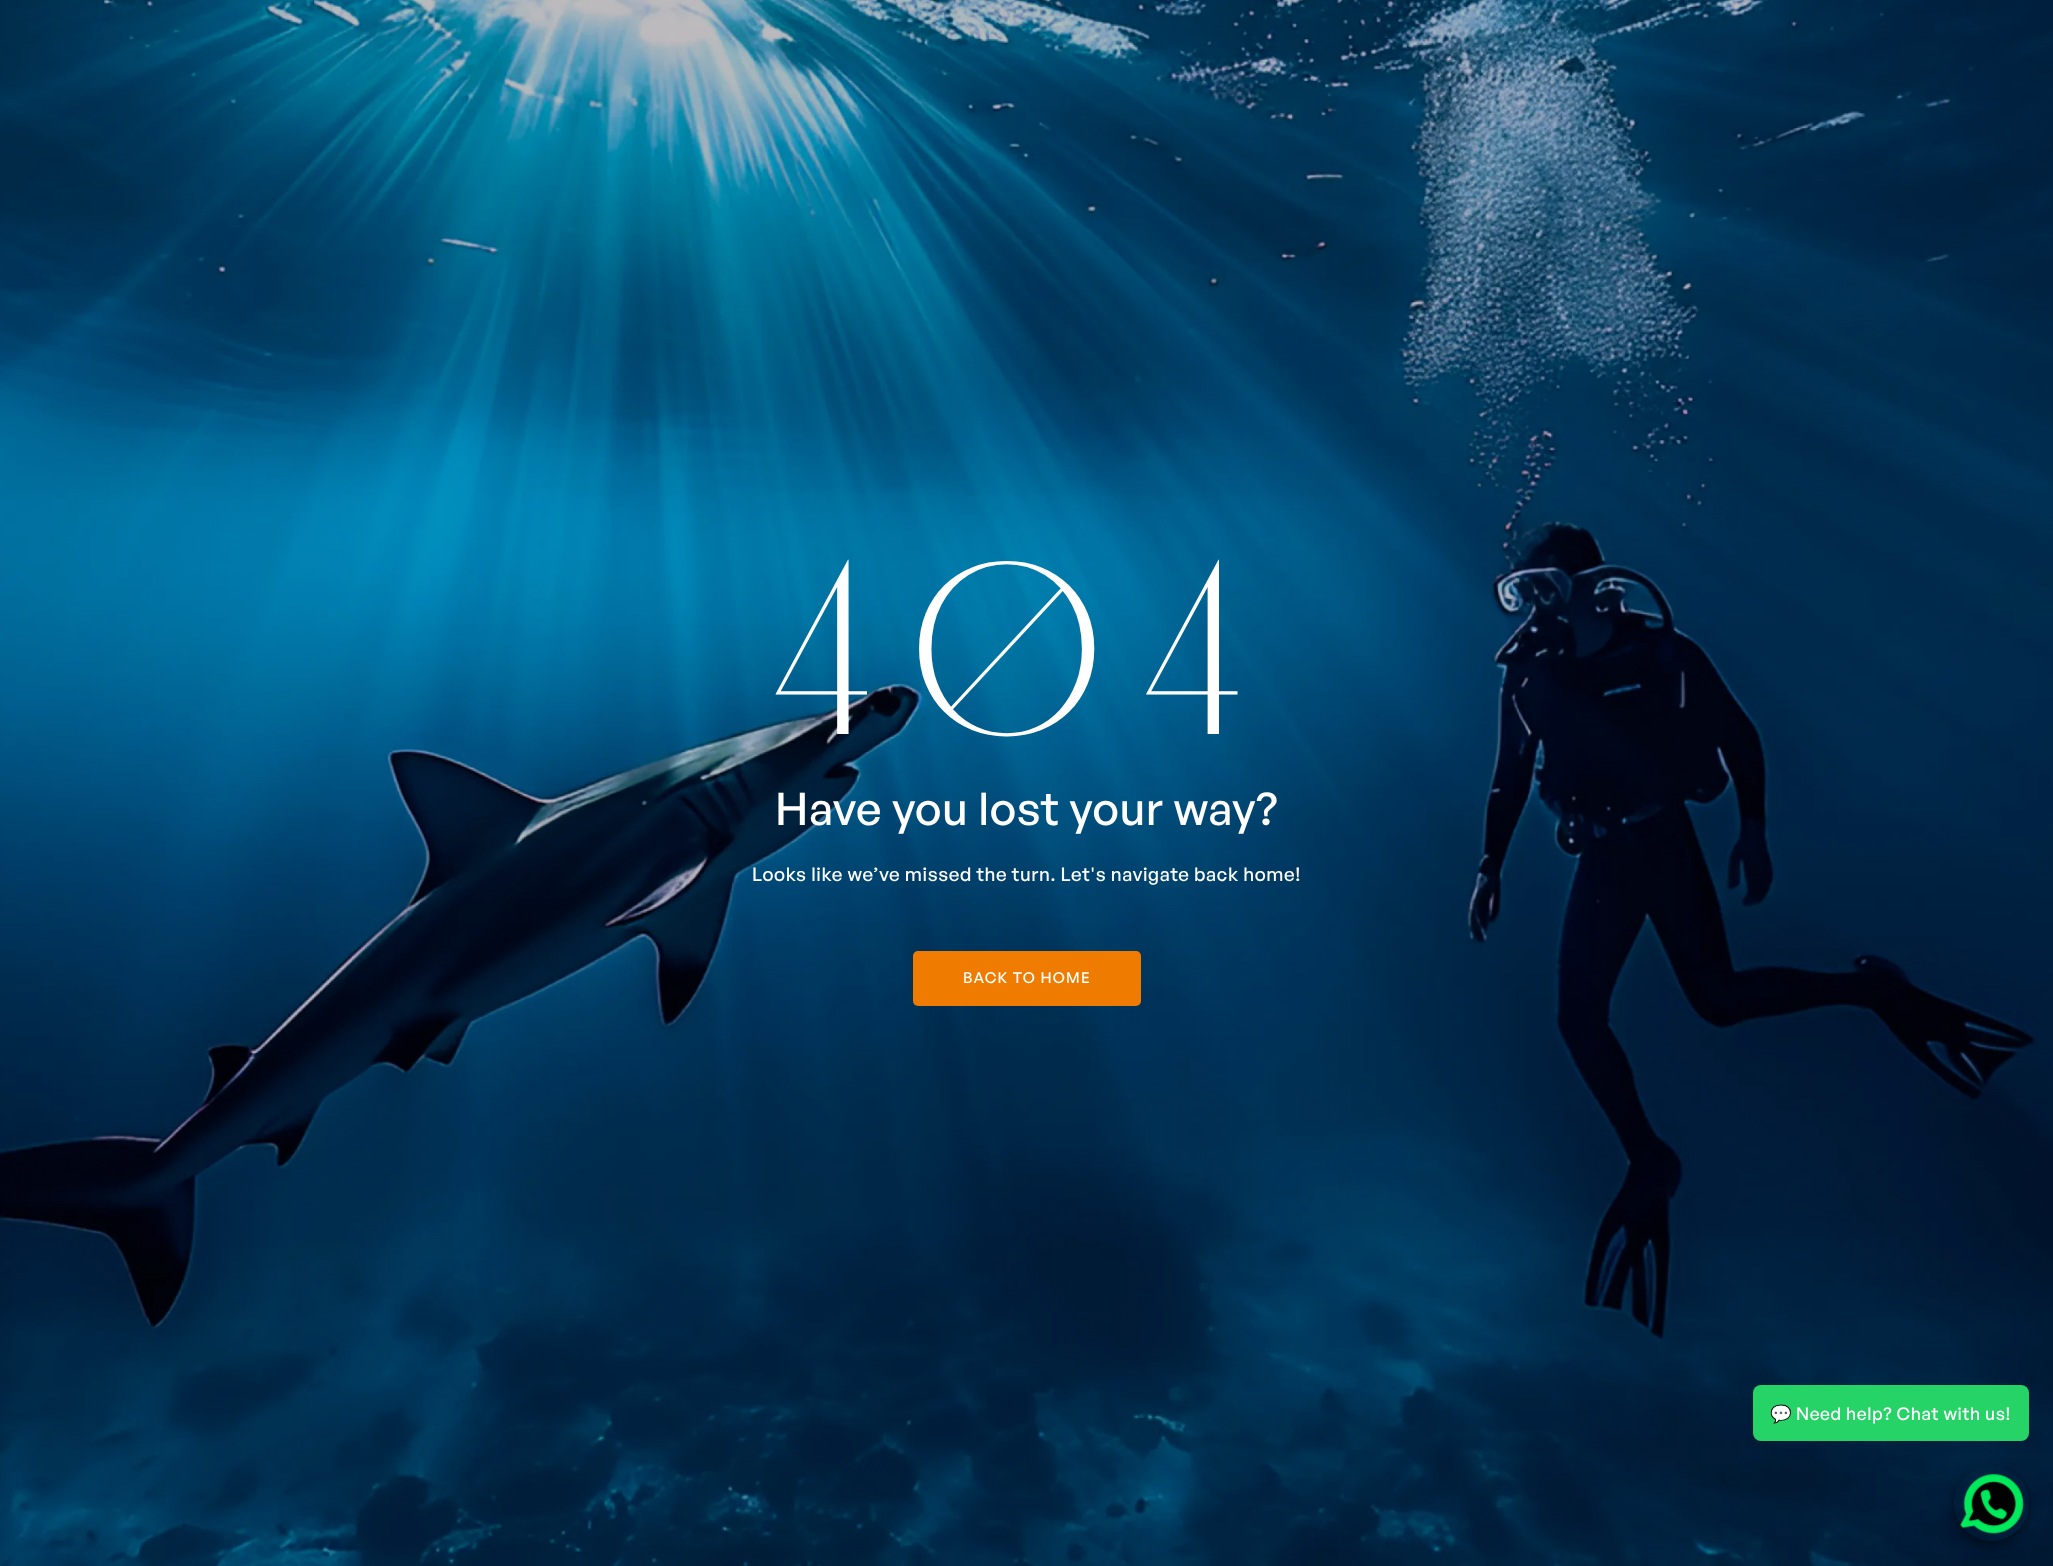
<svg xmlns="http://www.w3.org/2000/svg" width="2053" height="1566" viewBox="0 0 2053 1566">
  <defs>
    <clipPath id="clip1"><path d="M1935 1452H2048V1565H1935ZM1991.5 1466C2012 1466 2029 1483 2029 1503.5C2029 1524 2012 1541 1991.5 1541C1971 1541 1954 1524 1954 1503.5C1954 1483 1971 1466 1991.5 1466Z" clip-rule="evenodd"/></clipPath>
  </defs>
  <rect width="100%" height="100%" fill="rgb(255,255,255)"/>
  <image x="0" y="0" width="2053" height="1566" href="pic1.png"/>
  <text x="772" y="734" font-family="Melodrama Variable" font-size="246" font-weight="300" letter-spacing="41" fill="rgb(255,255,255)">404</text>
  <text x="775" y="825" font-family="General Sans" font-size="45" font-weight="500" letter-spacing="0.62" fill="rgb(255,255,255)">Have you lost your way?</text>
  <text x="752" y="881" font-family="General Sans" font-size="18.75" font-weight="500" letter-spacing="0.62" fill="rgb(255,255,255)">Looks like we’ve missed the turn. Let's navigate back home!</text>
  <rect x="913" y="951" width="228" height="55" rx="5" fill="rgb(239,124,0)"/>
  <text x="963" y="983" font-family="General Sans" font-size="15" font-weight="500" letter-spacing="1.25" fill="rgb(255,255,255)">BACK TO HOME</text>
  <rect x="1753" y="1385" width="276" height="56" rx="8" fill="rgb(37,211,102)"/>
  <text x="1770" y="1420" font-family="Noto Color Emoji" font-size="17.5" letter-spacing="0.62" fill="rgb(255,255,255)">💬</text>
  <text x="1796" y="1420" font-family="General Sans" font-size="17.5" font-weight="500" letter-spacing="0.62" fill="rgb(255,255,255)">Need help? Chat with us!</text>
  <g clip-path="url(#clip1)">
    <rect x="1954" y="1471" width="75" height="75" rx="37.5" fill="rgba(0,0,0,0.5)" filter="blur(6px)"/>
  </g>
  <image x="1960" y="1474" width="64" height="60" href="pic2.png"/>
</svg>
